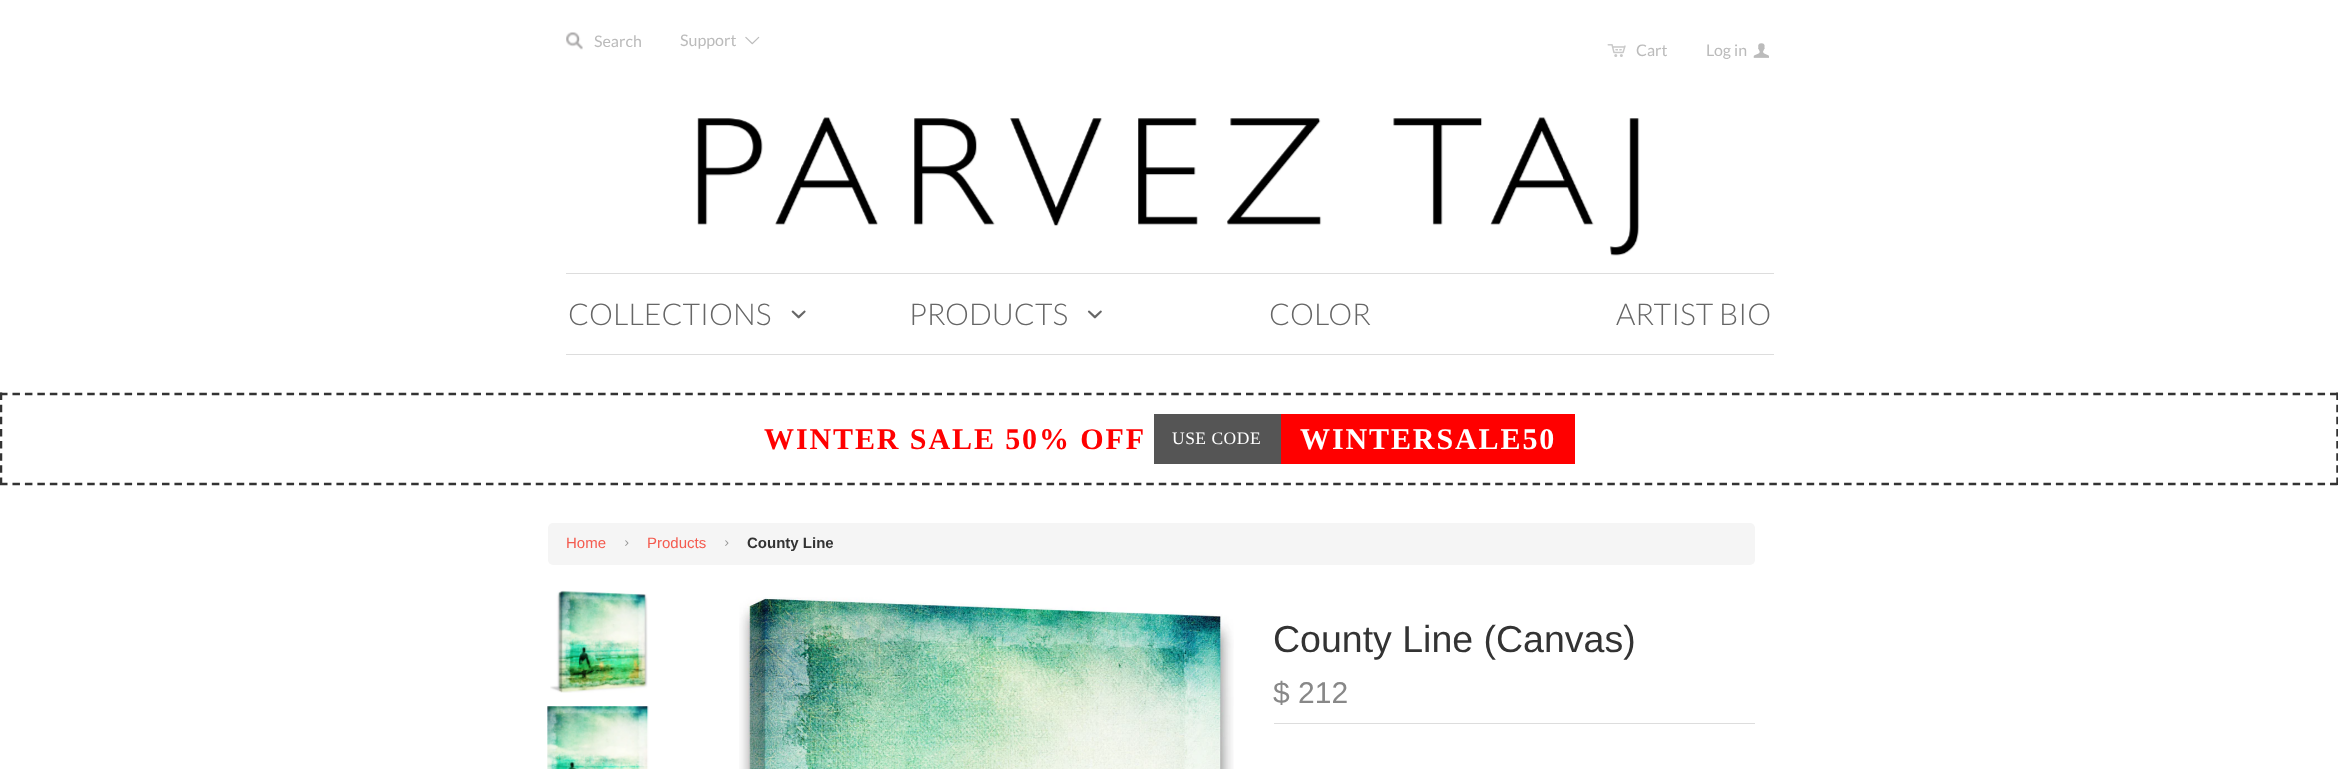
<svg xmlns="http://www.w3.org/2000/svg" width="2338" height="769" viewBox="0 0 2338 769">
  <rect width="100%" height="100%" fill="rgb(255,255,255)"/>
  <image x="566" y="32" width="17" height="18" href="pic1.png"/>
  <g font-family="Lato" font-size="16" fill="rgb(187,187,187)">
    <text x="594" y="47">Search</text>
    <text x="680" y="46">Support</text>
  </g>
  <image x="745" y="36" width="15" height="9" href="pic2.png"/>
  <image x="1607" y="44" width="19" height="13" href="pic3.png"/>
  <g font-family="Lato" font-size="16" fill="rgb(187,187,187)">
    <text x="1636" y="56">Cart</text>
    <text x="1706" y="56">Log in</text>
  </g>
  <image x="1753" y="43" width="16" height="15" href="pic4.png"/>
  <image x="697" y="117" width="943" height="139" href="pic5.png"/>
  <rect x="566" y="273" width="1208" height="1" fill="rgb(221,221,221)"/>
  <rect x="566" y="354" width="1208" height="1" fill="rgb(221,221,221)"/>
  <text x="568" y="325" font-family="Lato" font-size="30" font-weight="300" fill="rgb(102,102,102)">COLLECTIONS</text>
  <image x="791" y="310" width="15" height="9" href="pic6.png"/>
  <text x="909" y="325" font-family="Lato" font-size="30" font-weight="300" fill="rgb(102,102,102)">PRODUCTS</text>
  <image x="1087" y="310" width="15" height="9" href="pic7.png"/>
  <g font-family="Lato" font-size="30" font-weight="300" fill="rgb(102,102,102)">
    <text x="1269" y="325">COLOR</text>
    <text x="1616" y="325">ARTIST BIO</text>
  </g>
  <path d="M0 394H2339" fill="none" stroke="rgb(51,51,51)" stroke-width="2.5" stroke-dasharray="7.5 4.96"/>
  <path d="M2337.5 392.5V485" fill="none" stroke="rgb(51,51,51)" stroke-width="2.5" stroke-dasharray="7.5 4.64"/>
  <path d="M0 484H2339" fill="none" stroke="rgb(51,51,51)" stroke-width="2.5" stroke-dasharray="7.5 4.96"/>
  <path d="M1 392.5V485" fill="none" stroke="rgb(51,51,51)" stroke-width="2.5" stroke-dasharray="7.5 4.64"/>
  <text x="764" y="449" font-family="Liberation Serif" font-size="30" font-weight="bold" letter-spacing="1.9" fill="rgb(255,0,0)">WINTER SALE 50% OFF</text>
  <rect x="1154" y="414" width="127" height="50" fill="rgb(85,85,85)"/>
  <text x="1172" y="444" font-family="Liberation Serif" font-size="17.5" letter-spacing="0.5" fill="rgb(255,255,255)">USE CODE</text>
  <rect x="1281" y="414" width="294" height="50" fill="rgb(255,0,0)"/>
  <text x="1300" y="449" font-family="Liberation Serif" font-size="30" font-weight="bold" letter-spacing="1.9" fill="rgb(255,255,255)">WINTERSALE50</text>
  <rect x="548" y="523" width="1207" height="42" rx="5" fill="rgb(245,245,245)"/>
  <text x="566" y="548" font-family="Liberation Sans" font-size="15" fill="rgb(244,91,79)">Home</text>
  <image x="625" y="540" width="4" height="6" href="pic8.png"/>
  <text x="647" y="548" font-family="Liberation Sans" font-size="15" fill="rgb(244,91,79)">Products</text>
  <image x="725" y="540" width="4" height="6" href="pic8.png"/>
  <text x="747" y="548" font-family="Liberation Sans" font-size="15" font-weight="bold" fill="rgb(51,51,51)">County Line</text>
  <image x="550" y="590" width="98" height="103" href="pic9.png"/>
  <image x="547" y="706" width="102" height="63" href="pic10.png"/>
  <image x="739" y="597" width="495" height="172" href="pic11.png"/>
  <text x="1273" y="652" font-family="Liberation Sans" font-size="37.5" fill="rgb(51,51,51)">County Line (Canvas)</text>
  <text x="1273" y="703" font-family="Liberation Sans" font-size="30" fill="rgb(136,136,136)">$ 212</text>
  <rect x="1274" y="723" width="481" height="1" fill="rgb(221,221,221)"/>
</svg>
